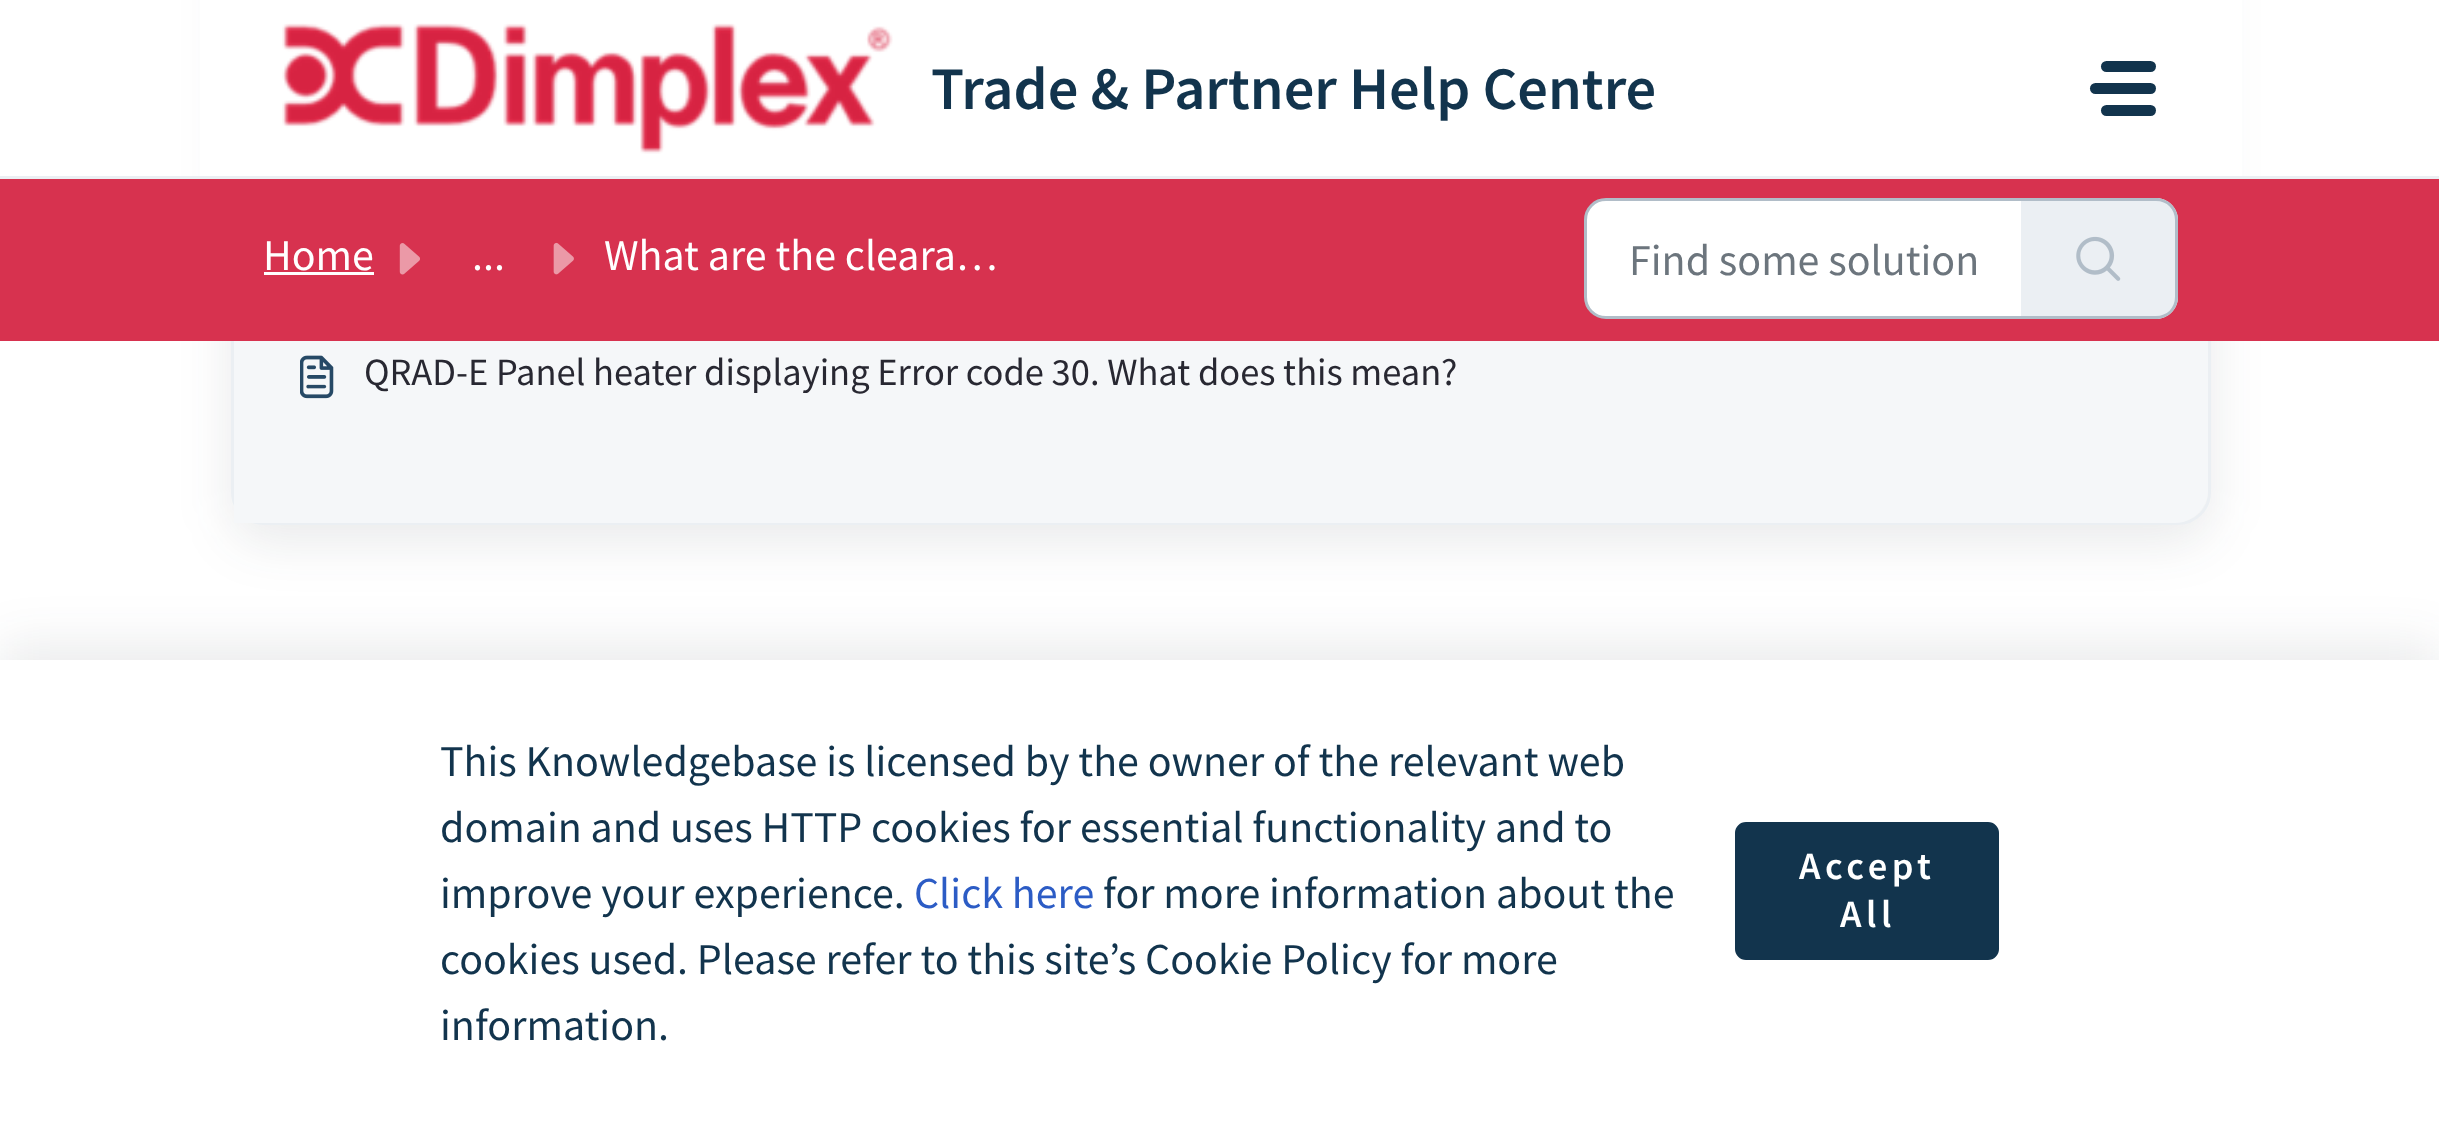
<svg xmlns="http://www.w3.org/2000/svg" width="2439" height="1121" viewBox="0 0 2439 1121">
  <rect width="100%" height="100%" fill="rgb(255,255,255)"/>
  <rect x="231" y="-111" width="1980" height="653" rx="33" fill="rgba(39,49,58,0.1)" filter="blur(26px)"/>
  <rect x="232.5" y="-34.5" width="1977" height="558" rx="31.5" fill="none" stroke="rgb(235,239,243)" stroke-width="3"/>
  <path d="M234-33H2175C2193-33 2208-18 2208 0V490C2208 508 2193 523 2175 523H234Z" fill="rgb(245,247,249)"/>
  <rect x="200" y="0" width="2042" height="176" fill="rgb(255,255,255)"/>
  <rect x="0" y="176" width="2439" height="3" fill="rgb(235,239,243)"/>
  <image x="282" y="23" width="611" height="131" href="pic1.png"/>
  <text x="931" y="109" font-family="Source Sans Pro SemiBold" font-size="60.5" font-weight="600" fill="rgb(18,52,77)">Trade &amp; Partner Help Centre</text>
  <rect x="2101" y="61" width="55" height="11" rx="5.5" fill="rgb(18,52,77)"/>
  <rect x="2090" y="83" width="66" height="11" rx="5.5" fill="rgb(18,52,77)"/>
  <rect x="2101" y="105" width="55" height="11" rx="5.5" fill="rgb(18,52,77)"/>
  <rect x="0" y="179" width="2439" height="162" fill="rgb(215,50,79)"/>
  <text x="263" y="270" font-family="Source Sans Pro" font-size="44" fill="rgb(255,255,255)">Home</text>
  <rect x="264" y="272" width="110" height="3" fill="rgb(255,255,255)"/>
  <image x="399" y="243" width="21" height="32" href="pic2.png"/>
  <text x="472" y="270" font-family="Source Sans Pro" font-size="44" fill="rgb(255,255,255)">...</text>
  <image x="553" y="242" width="21" height="33" href="pic3.png"/>
  <text x="604" y="270" font-family="Source Sans Pro" font-size="44" fill="rgb(255,255,255)">What are the cleara…</text>
  <path d="M1606 199.5H2022.5V317.5H1606C1594.5 317.5 1585.5 308.5 1585.5 297V220C1585.5 208.5 1594.5 199.5 1606 199.5Z" fill="rgb(255,255,255)" stroke="rgb(177,189,200)" stroke-width="3"/>
  <text x="1629" y="275" font-family="Source Sans Pro" font-size="44" fill="rgb(108,117,125)">Find some solution</text>
  <path d="M2021 198H2156C2168 198 2178 208 2178 220V297C2178 309 2168 319 2156 319H2021Z" fill="rgb(235,239,243)"/>
  <path d="M2021 198H2156C2168 198 2178 208 2178 220V297C2178 309 2168 319 2156 319H2021ZM2021 201H2156C2167 201 2175 209 2175 220V297C2175 308 2167 316 2156 316H2021Z" fill="rgb(177,189,200)" fill-rule="evenodd"/>
  <image x="2076" y="236" width="45" height="45" href="pic4.png"/>
  <image x="300" y="355" width="34" height="44" href="pic5.png"/>
  <text x="364" y="385" font-family="Source Sans Pro" font-size="38.5" fill="rgb(40,40,50)">QRAD-E Panel heater displaying Error code 30. What does this mean?</text>
  <rect x="0" y="646" width="2439" height="462" fill="rgba(39,49,58,0.1)" filter="blur(26px)"/>
  <rect x="0" y="660" width="2439" height="461" fill="rgb(255,255,255)"/>
  <g font-family="Source Sans Pro" font-size="44" fill="rgb(18,52,77)">
    <text>
      <tspan x="440" y="776">This Knowledgebase is licensed by the owner of the relevant web</tspan>
      <tspan x="440" y="842">domain and uses HTTP cookies for essential functionality and to</tspan>
      <tspan x="440" y="908">improve your experience.</tspan>
    </text>
  </g>
  <text x="914" y="908" font-family="Source Sans Pro" font-size="44" fill="rgb(44,92,197)">Click here</text>
  <g font-family="Source Sans Pro" font-size="44" fill="rgb(18,52,77)">
    <text x="1103" y="908">for more information about the</text>
    <text>
      <tspan x="440" y="974">cookies used. Please refer to this site’s Cookie Policy for more</tspan>
      <tspan x="440" y="1040">information.</tspan>
    </text>
  </g>
  <rect x="1736.5" y="823.5" width="261" height="135" rx="9.5" fill="rgb(18,52,77)" stroke="rgb(18,52,77)" stroke-width="3"/>
  <g font-family="Source Sans Pro SemiBold" font-size="38.5" font-weight="600" letter-spacing="4.5" fill="rgb(255,255,255)">
    <text x="1799" y="879">Accept</text>
    <text x="1840" y="927">All</text>
  </g>
</svg>
